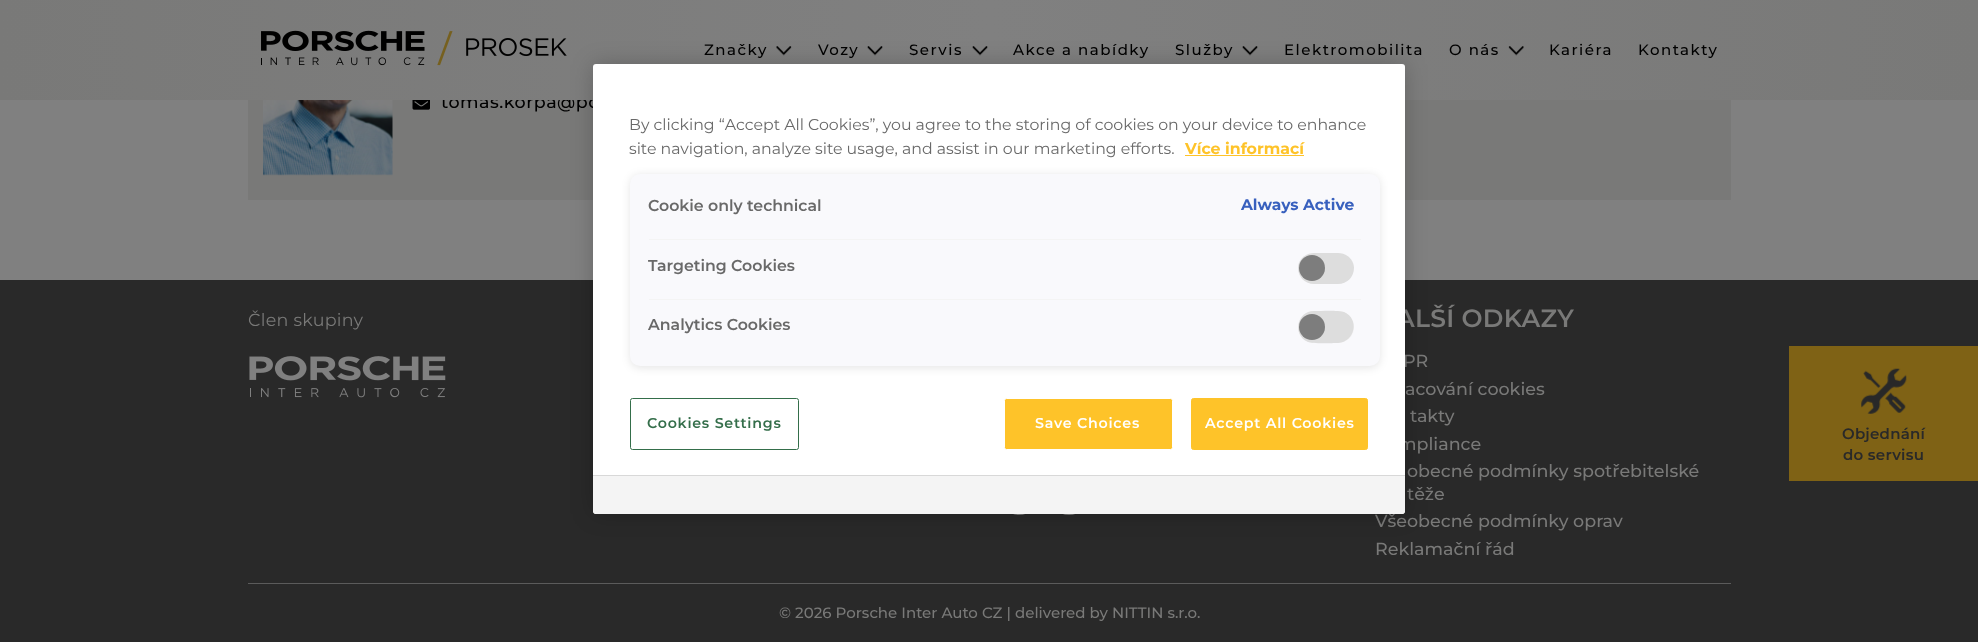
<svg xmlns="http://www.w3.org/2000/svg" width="1978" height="642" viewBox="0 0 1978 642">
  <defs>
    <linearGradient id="g1" gradientUnits="userSpaceOnUse" x1="0" y1="50" x2="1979" y2="50"><stop offset="0" stop-color="rgb(121,121,120)"/><stop offset="0.5" stop-color="rgb(128,128,128)"/><stop offset="1" stop-color="rgb(121,121,120)"/></linearGradient>
  </defs>
  <rect width="100%" height="100%" fill="rgb(128,128,128)"/>
  <rect x="248" y="100" width="345" height="100" fill="rgb(121,121,120)"/>
  <text x="441" y="108" font-family="Montserrat" font-size="17.5" font-weight="500" letter-spacing="0.5" fill="rgb(0,0,0)">tomas.korpa@po</text>
  <rect x="0" y="0" width="1978" height="100" fill="url(#g1)"/>
  <image x="261" y="30" width="306" height="36" href="pic1.png"/>
  <text x="704" y="55" font-family="Montserrat" font-size="15" font-weight="500" letter-spacing="1.5" fill="rgb(0,0,0)">Značky</text>
  <image x="776" y="46" width="16" height="10" href="pic2.png"/>
  <text x="818" y="55" font-family="Montserrat" font-size="15" font-weight="500" letter-spacing="1.5" fill="rgb(0,0,0)">Vozy</text>
  <image x="867" y="46" width="16" height="10" href="pic3.png"/>
  <text x="909" y="55" font-family="Montserrat" font-size="15" font-weight="500" letter-spacing="1.5" fill="rgb(0,0,0)">Servis</text>
  <image x="972" y="46" width="16" height="10" href="pic4.png"/>
  <g font-family="Montserrat" font-size="15" font-weight="500" letter-spacing="1.5" fill="rgb(0,0,0)">
    <text x="1013" y="55">Akce a nabídky</text>
    <text x="1175" y="55">Služby</text>
  </g>
  <image x="1242" y="46" width="16" height="10" href="pic5.png"/>
  <g font-family="Montserrat" font-size="15" font-weight="500" letter-spacing="1.5" fill="rgb(0,0,0)">
    <text x="1284" y="55">Elektromobilita</text>
    <text x="1449" y="55">O nás</text>
  </g>
  <image x="1508" y="46" width="16" height="10" href="pic6.png"/>
  <g font-family="Montserrat" font-size="15" font-weight="500" letter-spacing="1.5" fill="rgb(0,0,0)">
    <text x="1549" y="55">Kariéra</text>
    <text x="1638" y="55">Kontakty</text>
  </g>
  <image x="263" y="100" width="130" height="76" href="pic7.png"/>
  <image x="412" y="100" width="18" height="10" href="pic8.png"/>
  <rect x="1405" y="100" width="326" height="100" fill="rgb(121,121,120)"/>
  <rect x="0" y="280" width="1978" height="362" fill="rgb(41,41,41)"/>
  <text x="248" y="326" font-family="Montserrat" font-size="17.5" letter-spacing="0.25" fill="rgb(121,121,120)">Člen skupiny</text>
  <image x="249" y="356" width="197" height="42" href="pic9.png"/>
  <text x="1396" y="327" font-family="Montserrat" font-size="25" font-weight="600" letter-spacing="0.25" fill="rgb(121,121,120)">ALŠÍ ODKAZY</text>
  <g font-family="Montserrat" font-size="17.5" font-weight="500" fill="rgb(121,121,120)">
    <text x="1403" y="367">PR</text>
    <text x="1405" y="395">acování cookies</text>
    <text x="1410" y="422">takty</text>
    <text x="1398" y="450">mpliance</text>
    <text>
      <tspan x="1407" y="477">obecné podmínky spotřebitelské</tspan>
      <tspan x="1407" y="500">těže</tspan>
    </text>
    <text>
      <tspan x="1375" y="527">Všeobecné podmínky oprav</tspan>
      <tspan x="1375" y="555">Reklamační řád</tspan>
    </text>
  </g>
  <circle cx="1019" cy="495" r="20" fill="rgb(121,121,120)"/>
  <circle cx="1069" cy="495" r="20" fill="rgb(121,121,120)"/>
  <rect x="248" y="583" width="1483" height="1" fill="rgb(91,91,91)"/>
  <text x="779" y="618" font-family="Montserrat" font-size="15" font-weight="500" fill="rgb(121,121,120)">© 2026 Porsche Inter Auto CZ | delivered by NITTIN s.r.o.</text>
  <rect x="1789" y="346" width="189" height="135" fill="rgb(127,98,21)"/>
  <image x="1861" y="368" width="46" height="46" href="pic10.png"/>
  <g font-family="Montserrat" font-size="15" font-weight="600" letter-spacing="0.25" fill="rgb(41,41,41)">
    <text x="1842" y="439">Objednání</text>
    <text x="1843" y="460">do servisu</text>
  </g>
  <rect x="593" y="64" width="812" height="450" rx="3" fill="rgba(0,0,0,0.2)" filter="blur(11px)"/>
  <rect x="593" y="64" width="812" height="450" rx="3" fill="rgb(255,255,255)"/>
  <g font-family="Montserrat" font-size="15.75" fill="rgb(105,105,105)">
    <text>
      <tspan x="629" y="130">By clicking “Accept All Cookies”, you agree to the storing of cookies on your device to enhance</tspan>
      <tspan x="629" y="154">site navigation, analyze site usage, and assist in our marketing efforts.</tspan>
    </text>
  </g>
  <text x="1185" y="154" font-family="Montserrat" font-size="15.75" font-weight="bold" fill="rgb(254,195,41)">Více informací</text>
  <rect x="1185" y="155" width="119" height="1" fill="rgb(254,195,41)"/>
  <rect x="630" y="175" width="750" height="193" rx="10" fill="rgba(0,0,0,0.1)" filter="blur(4px)"/>
  <rect x="630" y="174" width="750" height="192" rx="10" fill="rgb(249,249,252)"/>
  <rect x="649" y="239" width="712" height="1" fill="rgb(244,244,244)"/>
  <text x="648" y="211" font-family="Montserrat" font-size="15.75" font-weight="600" fill="rgb(105,105,105)">Cookie only technical</text>
  <text x="1241" y="210" font-family="Montserrat" font-size="15.5" font-weight="bold" fill="rgb(56,96,190)">Always Active</text>
  <rect x="649" y="299" width="712" height="1" fill="rgb(244,244,244)"/>
  <text x="648" y="271" font-family="Montserrat" font-size="15.75" font-weight="600" fill="rgb(105,105,105)">Targeting Cookies</text>
  <path d="M1314 253H1338C1347 253 1354 260 1354 268C1354 277 1347 284 1338 284H1314C1305 284 1298 277 1298 268C1298 260 1305 253 1314 253Z" fill="rgb(221,221,221)"/>
  <circle cx="1312" cy="268" r="13" fill="rgb(125,125,125)"/>
  <text x="648" y="330" font-family="Montserrat" font-size="15.75" font-weight="600" fill="rgb(105,105,105)">Analytics Cookies</text>
  <rect x="1298" y="311" width="56" height="32" rx="16" fill="rgb(242,241,241)"/>
  <path d="M1314 311C1321 311 1338 310 1344 312C1360 319 1355 342 1338 343C1332 343 1313 344 1308 342C1292 335 1297 311 1314 311Z" fill="rgb(221,221,221)"/>
  <circle cx="1312" cy="327" r="13" fill="rgb(125,125,125)"/>
  <rect x="630.5" y="398.5" width="168" height="51" rx="2" fill="none" stroke="rgb(52,110,74)"/>
  <text x="647" y="428" font-family="Montserrat" font-size="14.25" font-weight="600" letter-spacing="0.75" fill="rgb(52,110,74)">Cookies Settings</text>
  <rect x="1004.5" y="398.5" width="168" height="51" rx="2" fill="rgb(254,195,41)" stroke="rgb(255,255,255)"/>
  <text x="1035" y="428" font-family="Montserrat" font-size="14.25" font-weight="600" letter-spacing="0.75" fill="rgb(255,255,255)">Save Choices</text>
  <rect x="1191.5" y="398.5" width="176" height="51" rx="2" fill="rgb(254,195,41)" stroke="rgb(254,195,41)"/>
  <text x="1205" y="428" font-family="Montserrat" font-size="14.25" font-weight="600" letter-spacing="0.75" fill="rgb(255,255,255)">Accept All Cookies</text>
  <path d="M593 475H1405V511C1405 512.5 1403.5 514 1402 514H596C594.5 514 593 512.5 593 511Z" fill="rgb(244,244,244)"/>
  <rect x="593" y="475" width="812" height="1" fill="rgb(216,216,216)"/>
</svg>
